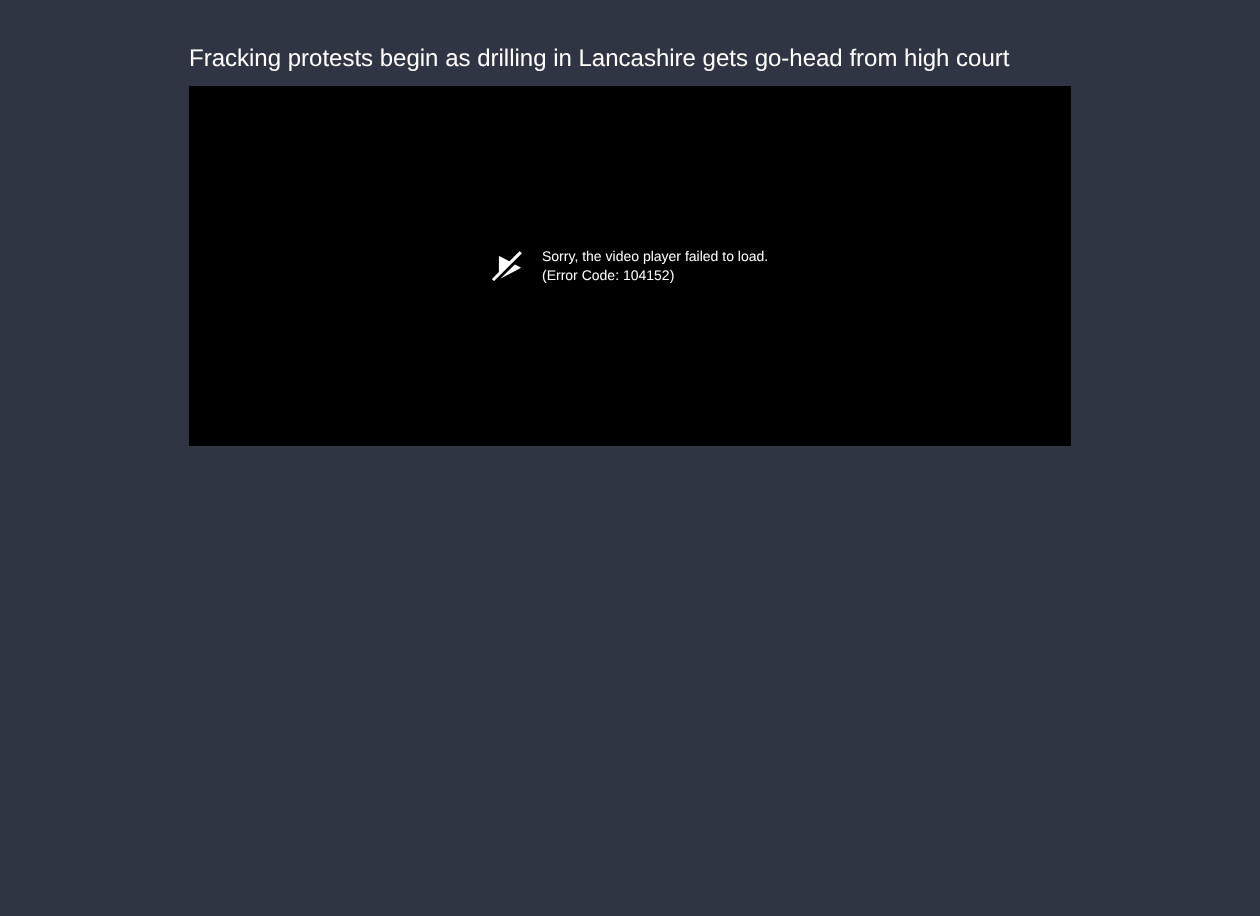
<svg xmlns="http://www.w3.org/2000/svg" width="1260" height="916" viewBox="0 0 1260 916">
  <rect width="100%" height="100%" fill="rgb(47,53,66)"/>
  <text x="189" y="66" font-family="Liberation Sans" font-size="24" fill="rgb(255,255,255)">Fracking protests begin as drilling in Lancashire gets go-head from high court</text>
  <rect x="189" y="86" width="882" height="360" fill="rgb(0,0,0)"/>
  <image x="492" y="251" width="30" height="30" href="pic1.png"/>
  <g font-family="Liberation Sans" font-size="14" fill="rgb(255,255,255)">
    <text>
      <tspan x="542" y="261">Sorry, the video player failed to load.</tspan>
      <tspan x="542" y="280">(Error Code: 104152)</tspan>
    </text>
  </g>
</svg>
